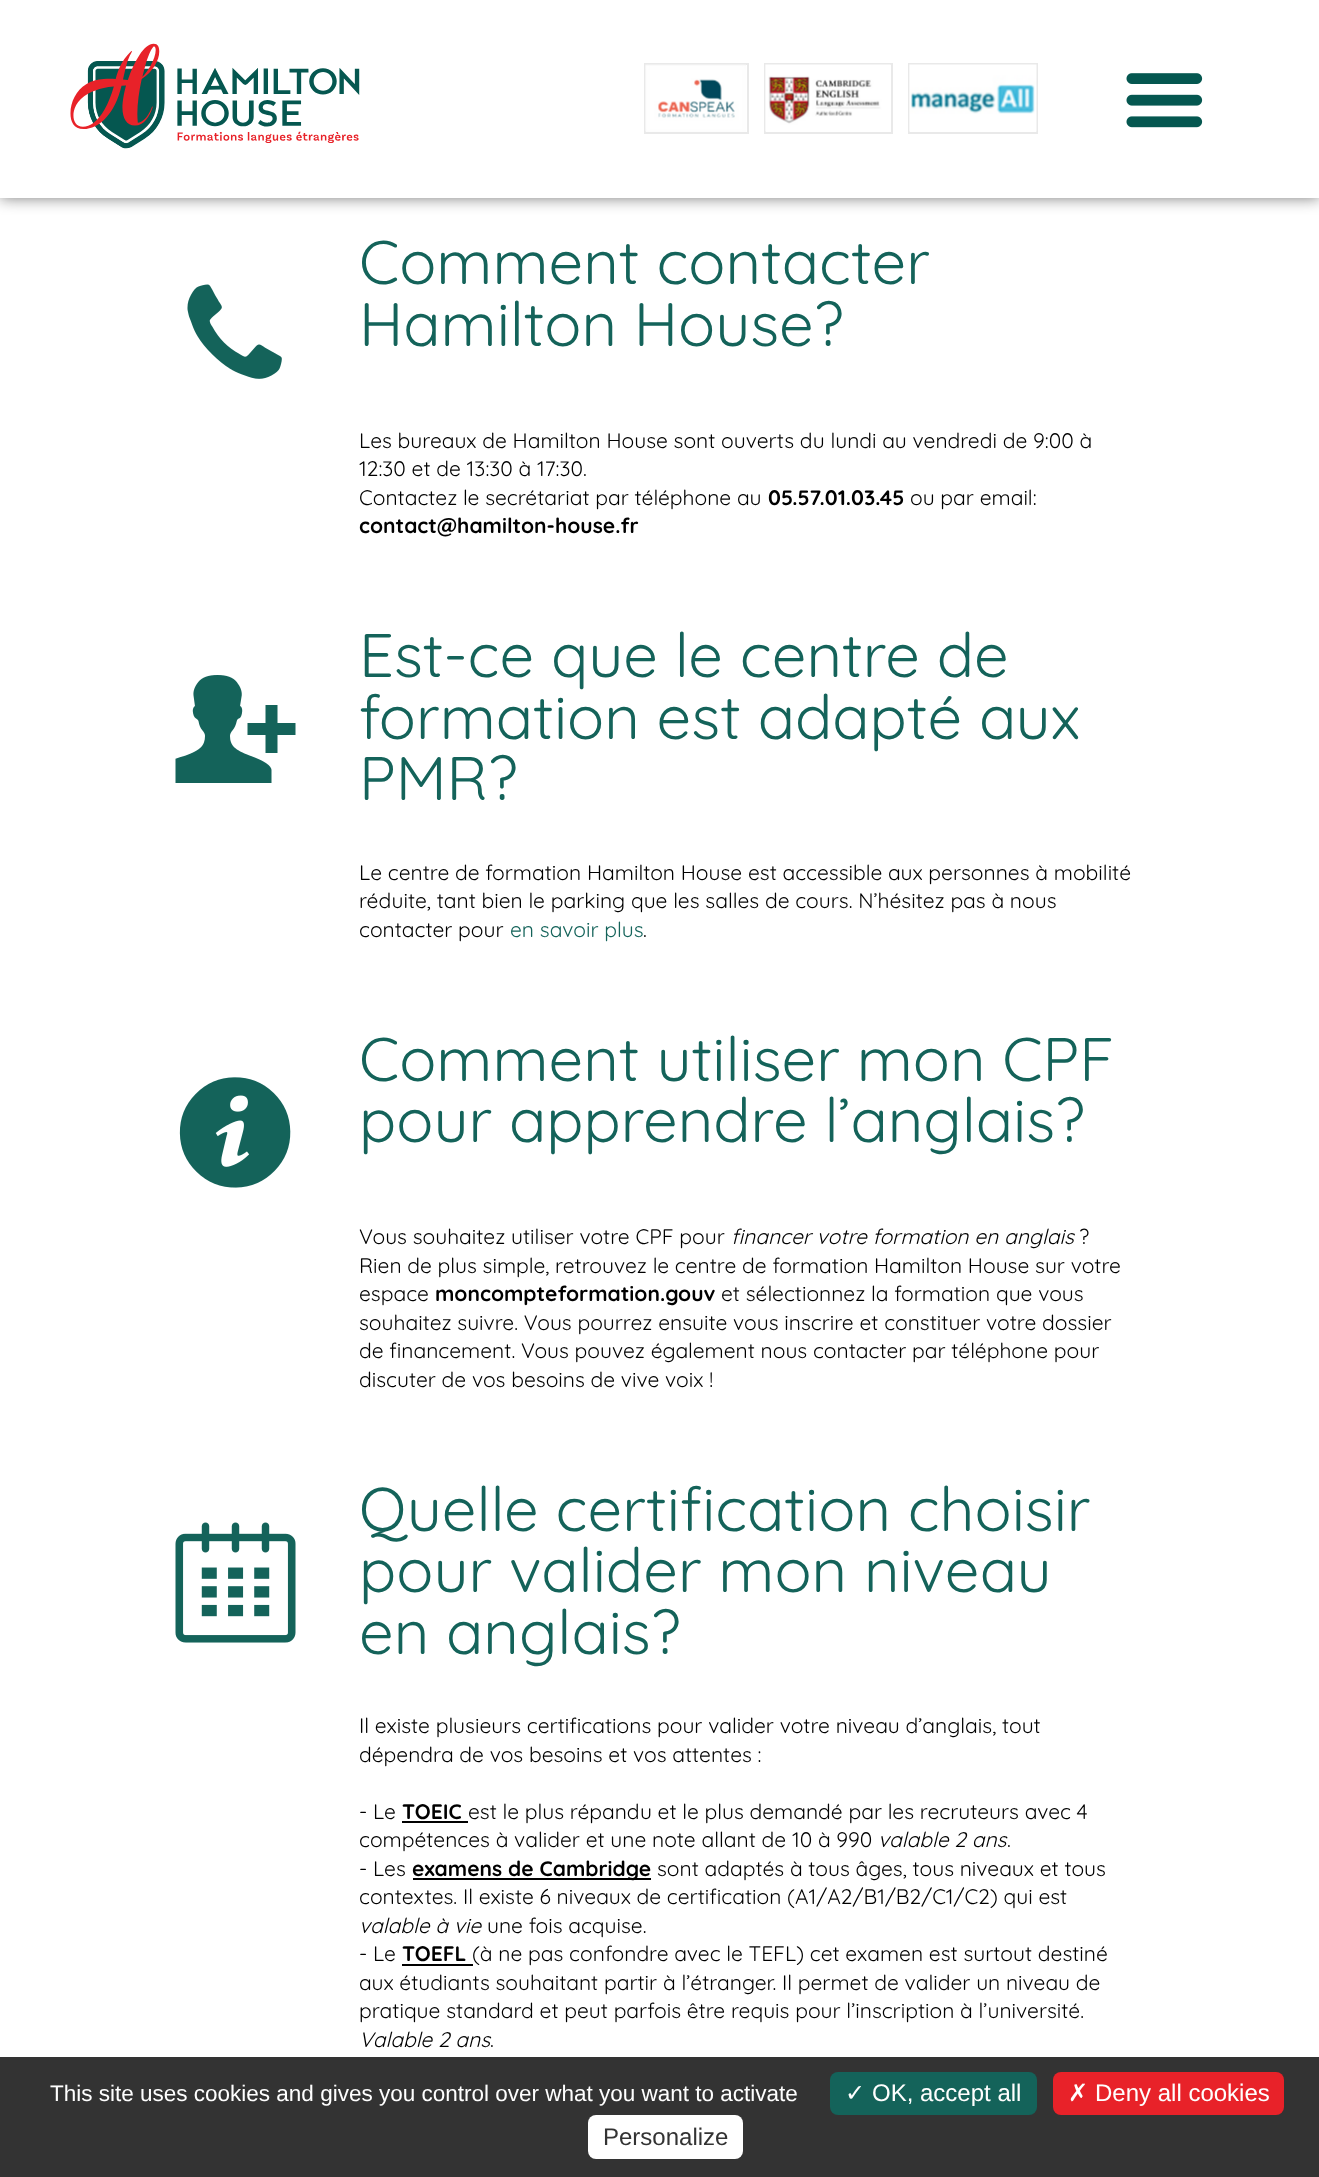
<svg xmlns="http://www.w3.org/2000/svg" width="1319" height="2177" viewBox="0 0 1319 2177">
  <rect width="100%" height="100%" fill="rgb(255,255,255)"/>
  <rect x="0" y="0" width="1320" height="198" fill="rgba(5,5,5,0.53)" filter="blur(7.5px)"/>
  <rect x="0" y="0" width="1319" height="198" fill="rgb(255,255,255)"/>
  <image x="70" y="43" width="290" height="106" href="pic1.png"/>
  <rect x="645" y="64" width="103" height="69" fill="none" stroke="rgb(233,233,233)" stroke-width="2"/>
  <image x="645" y="64" width="101" height="68" href="pic2.png"/>
  <rect x="765" y="64" width="127" height="69" fill="none" stroke="rgb(233,233,233)" stroke-width="2"/>
  <image x="765" y="64" width="126" height="68" href="pic3.png"/>
  <rect x="909" y="64" width="128" height="69" fill="none" stroke="rgb(233,233,233)" stroke-width="2"/>
  <image x="909" y="64" width="128" height="68" href="pic4.png"/>
  <image x="1126" y="73" width="77" height="55" href="pic5.png"/>
  <image x="187" y="284" width="95" height="95" href="pic6.png"/>
  <g font-family="Quicksand" font-size="61.5" fill="rgb(20,99,90)">
    <text>
      <tspan x="359" y="284">Comment contacter</tspan>
      <tspan x="359" y="346">Hamilton House?</tspan>
    </text>
  </g>
  <g font-family="Quicksand" font-size="21" fill="rgb(0,0,0)">
    <text>
      <tspan x="359" y="448">Les bureaux de Hamilton House sont ouverts du lundi au vendredi de 9:00 à</tspan>
      <tspan x="359" y="476">12:30 et de 13:30 à 17:30.</tspan>
      <tspan x="359" y="505">Contactez le secrétariat par téléphone au</tspan>
    </text>
  </g>
  <text x="768" y="505" font-family="Quicksand" font-size="21" font-weight="bold" fill="rgb(0,0,0)">05.57.01.03.45</text>
  <text x="910" y="505" font-family="Quicksand" font-size="21" fill="rgb(0,0,0)">ou par email:</text>
  <text x="359" y="533" font-family="Quicksand" font-size="21" font-weight="bold" fill="rgb(0,0,0)">contact@hamilton-house.fr</text>
  <image x="175" y="675" width="121" height="108" href="pic7.png"/>
  <g font-family="Quicksand" font-size="61.5" fill="rgb(20,99,90)">
    <text>
      <tspan x="359" y="677">Est-ce que le centre de</tspan>
      <tspan x="359" y="739">formation est adapté aux</tspan>
      <tspan x="359" y="800">PMR?</tspan>
    </text>
  </g>
  <g font-family="Quicksand" font-size="21" fill="rgb(0,0,0)">
    <text>
      <tspan x="359" y="880">Le centre de formation Hamilton House est accessible aux personnes à mobilité</tspan>
      <tspan x="359" y="908">réduite, tant bien le parking que les salles de cours. N’hésitez pas à nous</tspan>
      <tspan x="359" y="937">contacter pour</tspan>
    </text>
  </g>
  <text x="510" y="937" font-family="Quicksand" font-size="21" fill="rgb(20,99,90)">en savoir plus</text>
  <text x="643" y="937" font-family="Quicksand" font-size="21" fill="rgb(0,0,0)">.</text>
  <image x="179" y="1077" width="112" height="111" href="pic8.png"/>
  <g font-family="Quicksand" font-size="61.5" fill="rgb(20,99,90)">
    <text>
      <tspan x="359" y="1081">Comment utiliser mon CPF</tspan>
      <tspan x="359" y="1142">pour apprendre l’anglais?</tspan>
    </text>
  </g>
  <text x="359" y="1244" font-family="Quicksand" font-size="21" fill="rgb(0,0,0)">Vous souhaitez utiliser votre CPF pour</text>
  <text x="731" y="1244" font-family="Quicksand" font-size="21" font-style="italic" fill="rgb(0,0,0)">financer votre formation en anglais</text>
  <g font-family="Quicksand" font-size="21" fill="rgb(0,0,0)">
    <text x="1079" y="1244">?</text>
    <text>
      <tspan x="359" y="1273">Rien de plus simple, retrouvez le centre de formation Hamilton House sur votre</tspan>
      <tspan x="359" y="1301">espace</tspan>
    </text>
  </g>
  <text x="435" y="1301" font-family="Quicksand" font-size="21" font-weight="bold" fill="rgb(0,0,0)">moncompteformation.gouv</text>
  <g font-family="Quicksand" font-size="21" fill="rgb(0,0,0)">
    <text x="721" y="1301">et sélectionnez la formation que vous</text>
    <text>
      <tspan x="359" y="1330">souhaitez suivre. Vous pourrez ensuite vous inscrire et constituer votre dossier</tspan>
      <tspan x="359" y="1358">de financement. Vous pouvez également nous contacter par téléphone pour</tspan>
      <tspan x="359" y="1387">discuter de vos besoins de vive voix !</tspan>
    </text>
  </g>
  <image x="175" y="1522" width="121" height="121" href="pic9.png"/>
  <g font-family="Quicksand" font-size="61.5" fill="rgb(20,99,90)">
    <text>
      <tspan x="359" y="1531">Quelle certification choisir</tspan>
      <tspan x="359" y="1592">pour valider mon niveau</tspan>
      <tspan x="359" y="1654">en anglais?</tspan>
    </text>
  </g>
  <g font-family="Quicksand" font-size="21" fill="rgb(0,0,0)">
    <text>
      <tspan x="359" y="1733">Il existe plusieurs certifications pour valider votre niveau d’anglais, tout</tspan>
      <tspan x="359" y="1762">dépendra de vos besoins et vos attentes :</tspan>
    </text>
    <text x="359" y="1819">- Le</text>
  </g>
  <text x="402" y="1819" font-family="Quicksand" font-size="21" font-weight="bold" fill="rgb(0,0,0)">TOEIC</text>
  <rect x="402" y="1821" width="66" height="2" fill="rgb(0,0,0)"/>
  <g font-family="Quicksand" font-size="21" fill="rgb(0,0,0)">
    <text x="468" y="1819">est le plus répandu et le plus demandé par les recruteurs avec 4</text>
    <text x="359" y="1847">compétences à valider et une note allant de 10 à 990</text>
  </g>
  <text x="878" y="1847" font-family="Quicksand" font-size="21" font-style="italic" fill="rgb(0,0,0)">valable 2 ans</text>
  <g font-family="Quicksand" font-size="21" fill="rgb(0,0,0)">
    <text x="1007" y="1847">.</text>
    <text x="359" y="1876">- Les</text>
  </g>
  <rect x="413" y="1878" width="238" height="2" fill="rgb(0,0,0)"/>
  <text x="412" y="1876" font-family="Quicksand" font-size="21" font-weight="bold" fill="rgb(0,0,0)">examens de Cambridge</text>
  <g font-family="Quicksand" font-size="21" fill="rgb(0,0,0)">
    <text x="657" y="1876">sont adaptés à tous âges, tous niveaux et tous</text>
    <text x="359" y="1904">contextes. Il existe 6 niveaux de certification (A1/A2/B1/B2/C1/C2) qui est</text>
  </g>
  <text x="359" y="1933" font-family="Quicksand" font-size="21" font-style="italic" fill="rgb(0,0,0)">valable à vie</text>
  <g font-family="Quicksand" font-size="21" fill="rgb(0,0,0)">
    <text x="487" y="1933">une fois acquise.</text>
    <text x="359" y="1961">- Le</text>
  </g>
  <text x="402" y="1961" font-family="Quicksand" font-size="21" font-weight="bold" fill="rgb(0,0,0)">TOEFL</text>
  <rect x="402" y="1964" width="71" height="2" fill="rgb(0,0,0)"/>
  <g font-family="Quicksand" font-size="21" fill="rgb(0,0,0)">
    <text x="472" y="1961">(à ne pas confondre avec le TEFL) cet examen est surtout destiné</text>
    <text>
      <tspan x="359" y="1990">aux étudiants souhaitant partir à l’étranger. Il permet de valider un niveau de</tspan>
      <tspan x="359" y="2018">pratique standard et peut parfois être requis pour l’inscription à l’université.</tspan>
    </text>
  </g>
  <text x="359" y="2047" font-family="Quicksand" font-size="21" font-style="italic" fill="rgb(0,0,0)">Valable 2 ans</text>
  <text x="490" y="2047" font-family="Quicksand" font-size="21" fill="rgb(0,0,0)">.</text>
  <rect x="0" y="2057" width="1319" height="120" fill="rgb(51,51,51)"/>
  <text x="50" y="2101" font-family="Liberation Sans" font-size="22.5" fill="rgb(255,255,255)">This site uses cookies and gives you control over what you want to activate</text>
  <rect x="830" y="2072" width="207" height="43" rx="8" fill="rgb(20,99,90)"/>
  <text x="845" y="2101" font-family="DejaVu Sans" font-size="24" fill="rgb(255,255,255)">✓</text>
  <text x="872" y="2101" font-family="Liberation Sans" font-size="24" fill="rgb(255,255,255)">OK, accept all</text>
  <rect x="1053" y="2072" width="231" height="43" rx="8" fill="rgb(232,34,41)"/>
  <text x="1068" y="2101" font-family="DejaVu Sans" font-size="24" fill="rgb(255,255,255)">✗</text>
  <text x="1095" y="2101" font-family="Liberation Sans" font-size="24" fill="rgb(255,255,255)">Deny all cookies</text>
  <rect x="588" y="2115" width="155" height="44" rx="8" fill="rgb(255,255,255)"/>
  <text x="603" y="2145" font-family="Liberation Sans" font-size="24" fill="rgb(51,51,51)">Personalize</text>
</svg>
